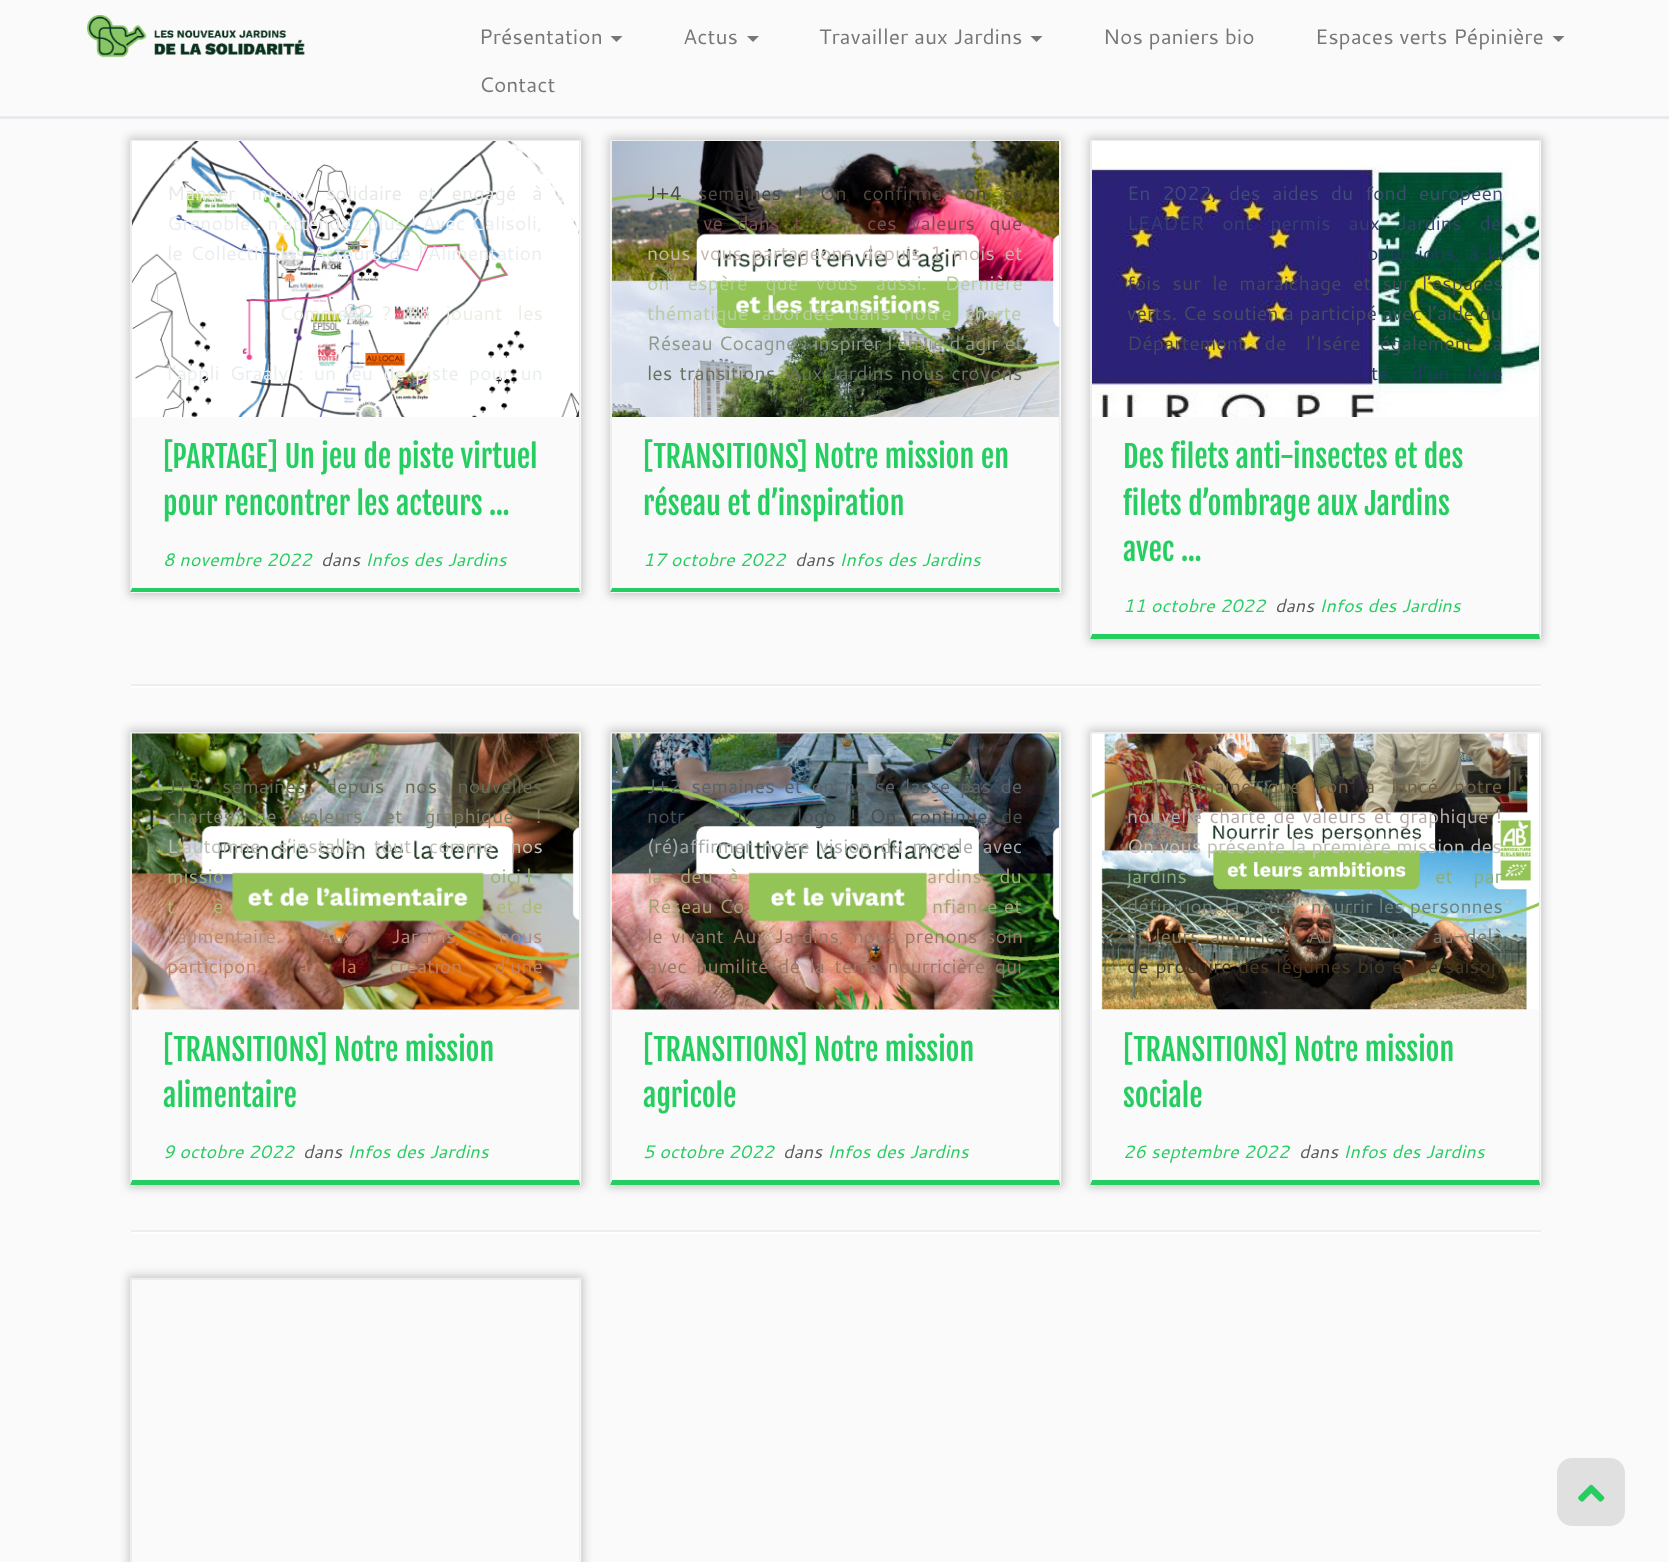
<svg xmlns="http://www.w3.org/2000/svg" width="1669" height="1562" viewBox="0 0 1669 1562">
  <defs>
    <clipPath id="clip1"><path d="M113 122H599V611H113ZM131 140H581V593H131Z" clip-rule="evenodd"/></clipPath>
    <clipPath id="clip2"><path d="M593 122H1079V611H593ZM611 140H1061V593H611Z" clip-rule="evenodd"/></clipPath>
    <clipPath id="clip3"><path d="M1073 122H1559V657H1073ZM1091 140H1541V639H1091Z" clip-rule="evenodd"/></clipPath>
    <clipPath id="clip4"><path d="M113 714H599V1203H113ZM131 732H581V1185H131Z" clip-rule="evenodd"/></clipPath>
    <clipPath id="clip5"><path d="M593 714H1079V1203H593ZM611 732H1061V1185H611Z" clip-rule="evenodd"/></clipPath>
    <clipPath id="clip6"><path d="M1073 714H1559V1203H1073ZM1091 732H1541V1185H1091Z" clip-rule="evenodd"/></clipPath>
    <clipPath id="clip7"><path d="M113 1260H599V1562H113ZM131 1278H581V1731H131Z" clip-rule="evenodd"/></clipPath>
  </defs>
  <rect width="100%" height="100%" fill="rgb(250,250,250)"/>
  <rect x="0" y="116" width="1669" height="3" fill="rgb(233,234,238)"/>
  <image x="87" y="15" width="218" height="43" href="pic1.png"/>
  <text x="479" y="44" font-family="Cantarell" font-size="21" fill="rgb(119,119,119)">Présentation</text>
  <path d="M610.5 36H622.5L616.5 42Z" fill="rgb(119,119,119)"/>
  <text x="683" y="44" font-family="Cantarell" font-size="21" fill="rgb(119,119,119)">Actus</text>
  <path d="M747 36H759L753 42Z" fill="rgb(119,119,119)"/>
  <text x="819" y="44" font-family="Cantarell" font-size="21" fill="rgb(119,119,119)">Travailler aux Jardins</text>
  <path d="M1030.5 36H1042.5L1036.5 42Z" fill="rgb(119,119,119)"/>
  <g font-family="Cantarell" font-size="21" fill="rgb(119,119,119)">
    <text x="1103" y="44">Nos paniers bio</text>
    <text x="1315" y="44">Espaces verts Pépinière</text>
  </g>
  <path d="M1552.5 36H1564.5L1558.5 42Z" fill="rgb(119,119,119)"/>
  <text x="479" y="92" font-family="Cantarell" font-size="21" fill="rgb(119,119,119)">Contact</text>
  <g clip-path="url(#clip1)">
    <rect x="128" y="137" width="456" height="459" fill="rgb(204,204,204)" filter="blur(4.5px)"/>
  </g>
  <rect x="131" y="140" width="450" height="2" fill="rgb(238,238,238)"/>
  <path d="M580 140V592L579 588V141Z" fill="rgb(238,238,238)"/>
  <path d="M580 592H130L132 588H579Z" fill="rgb(38,206,97)"/>
  <path d="M130 592V140L132 141V588Z" fill="rgb(238,238,238)"/>
  <image x="132" y="141" width="447" height="276" href="pic2.png"/>
  <text x="167" y="200" word-spacing="10.5" font-family="Cantarell" font-size="19.5" fill="rgb(230,234,230)">Manger mieux, solidaire et engagé à</text>
  <g font-family="Cantarell" font-size="19.5" fill="rgb(233,238,241)">
    <text>
      <tspan x="167" y="230" word-spacing="0.5">Grenoble : n’attendez plus ! Avec Calisoli,</tspan>
      <tspan x="167" y="260" word-spacing="2">le Collectif des Acteurs de l’Alimentation</tspan>
    </text>
  </g>
  <text x="279" y="320" word-spacing="10" font-family="Cantarell" font-size="19.5" fill="rgb(237,238,229)">Comment ? En jouant les</text>
  <text x="167" y="380" word-spacing="4.75" font-family="Cantarell" font-size="19.5" fill="rgb(233,238,241)">l’appli Graaly : un jeu de piste pour un</text>
  <g font-family="Fjalla One" font-size="30" fill="rgb(38,206,97)">
    <text>
      <tspan x="163" y="468">[PARTAGE] Un jeu de piste virtuel</tspan>
      <tspan x="163" y="515">pour rencontrer les acteurs ...</tspan>
    </text>
  </g>
  <text x="163" y="566" font-family="Cantarell" font-size="18" font-style="italic" fill="rgb(38,206,97)">8 novembre 2022</text>
  <text x="321" y="566" font-family="Cantarell" font-size="18" font-style="italic" fill="rgb(90,90,90)">dans</text>
  <text x="365" y="566" font-family="Cantarell" font-size="18" font-style="italic" fill="rgb(38,206,97)">Infos des Jardins</text>
  <g clip-path="url(#clip2)">
    <rect x="608" y="137" width="456" height="459" fill="rgb(204,204,204)" filter="blur(4.5px)"/>
  </g>
  <rect x="611" y="140" width="450" height="2" fill="rgb(238,238,238)"/>
  <path d="M1060 140V592L1059 588V141Z" fill="rgb(238,238,238)"/>
  <path d="M1060 592H610L612 588H1059Z" fill="rgb(38,206,97)"/>
  <path d="M610 592V140L612 141V588Z" fill="rgb(238,238,238)"/>
  <image x="612" y="141" width="447" height="276" href="pic3.png"/>
  <text x="647" y="200" word-spacing="10.75" font-family="Cantarell" font-size="19.5" fill="rgb(78,73,60)">J+4 semaines ! On confirme, on se</text>
  <g font-family="Cantarell" font-size="19.5" fill="rgb(128,75,76)">
    <text x="703" y="230" word-spacing="9">ve dans t</text>
    <text x="867" y="230" word-spacing="9">ces valeurs que</text>
  </g>
  <text x="647" y="260" word-spacing="4.25" font-family="Cantarell" font-size="19.5" fill="rgb(197,183,173)">nous vous partageons depuis 1 mois et</text>
  <g font-family="Cantarell" font-size="19.5" fill="rgb(183,206,158)">
    <text>
      <tspan x="647" y="290" word-spacing="12.5">on espère que vous aussi. Dernière</tspan>
      <tspan x="647" y="320" word-spacing="8">thématique abordée dans notre charte</tspan>
    </text>
  </g>
  <text x="647" y="350" word-spacing="0.5" font-family="Cantarell" font-size="19.5" fill="rgb(142,153,138)">Réseau Cocagne : inspirer l’envie d’agir et</text>
  <text x="647" y="380" word-spacing="1.75" font-family="Cantarell" font-size="19.5" fill="rgb(105,115,99)">les transitions. Aux Jardins nous croyons</text>
  <g font-family="Fjalla One" font-size="30" fill="rgb(38,206,97)">
    <text>
      <tspan x="643" y="468">[TRANSITIONS] Notre mission en</tspan>
      <tspan x="643" y="515">réseau et d’inspiration</tspan>
    </text>
  </g>
  <text x="643" y="566" font-family="Cantarell" font-size="18" font-style="italic" fill="rgb(38,206,97)">17 octobre 2022</text>
  <text x="795" y="566" font-family="Cantarell" font-size="18" font-style="italic" fill="rgb(90,90,90)">dans</text>
  <text x="839" y="566" font-family="Cantarell" font-size="18" font-style="italic" fill="rgb(38,206,97)">Infos des Jardins</text>
  <g clip-path="url(#clip3)">
    <rect x="1088" y="137" width="456" height="505" fill="rgb(204,204,204)" filter="blur(4.5px)"/>
  </g>
  <rect x="1091" y="140" width="450" height="2" fill="rgb(238,238,238)"/>
  <path d="M1540 140V639L1539 634V141Z" fill="rgb(238,238,238)"/>
  <path d="M1540 639H1090L1092 634H1539Z" fill="rgb(38,206,97)"/>
  <path d="M1090 639V140L1092 141V634Z" fill="rgb(238,238,238)"/>
  <image x="1092" y="141" width="447" height="276" href="pic4.png"/>
  <text x="1127" y="200" word-spacing="6.5" font-family="Cantarell" font-size="19.5" fill="rgb(61,75,117)">En 2022, des aides du fond européen</text>
  <text x="1127" y="230" word-spacing="12.5" font-family="Cantarell" font-size="19.5" fill="rgb(53,65,110)">LEADER ont permis aux Jardins de</text>
  <text x="1367" y="260" word-spacing="3" font-family="Cantarell" font-size="19.5" fill="rgb(40,56,103)">oductions, à la</text>
  <text x="1127" y="290" word-spacing="6" font-family="Cantarell" font-size="19.5" fill="rgb(66,73,88)">fois sur le maraichage et sur l’espaces</text>
  <text x="1127" y="320" font-family="Cantarell" font-size="19.5" fill="rgb(67,77,94)">verts. Ce soutien a participé avec l’aide du</text>
  <text x="1127" y="350" word-spacing="14" font-family="Cantarell" font-size="19.5" fill="rgb(66,73,88)">Département de l’Isére également à</text>
  <text x="1371" y="380" word-spacing="12" font-family="Cantarell" font-size="19.5" fill="rgb(40,56,103)">té, d’un léve</text>
  <g font-family="Fjalla One" font-size="30" fill="rgb(38,206,97)">
    <text>
      <tspan x="1123" y="468">Des filets anti-insectes et des</tspan>
      <tspan x="1123" y="515">filets d’ombrage aux Jardins</tspan>
      <tspan x="1123" y="561">avec ...</tspan>
    </text>
  </g>
  <text x="1123" y="612" font-family="Cantarell" font-size="18" font-style="italic" fill="rgb(38,206,97)">11 octobre 2022</text>
  <text x="1275" y="612" font-family="Cantarell" font-size="18" font-style="italic" fill="rgb(90,90,90)">dans</text>
  <text x="1319" y="612" font-family="Cantarell" font-size="18" font-style="italic" fill="rgb(38,206,97)">Infos des Jardins</text>
  <rect x="131" y="684" width="1410" height="2" fill="rgb(238,238,238)"/>
  <rect x="131" y="686" width="1410" height="2" fill="rgb(255,255,255)"/>
  <g clip-path="url(#clip4)">
    <rect x="128" y="729" width="456" height="459" fill="rgb(204,204,204)" filter="blur(4.5px)"/>
  </g>
  <rect x="131" y="732" width="450" height="2" fill="rgb(238,238,238)"/>
  <path d="M580 732V1185L579 1180V734Z" fill="rgb(238,238,238)"/>
  <path d="M580 1185H130L132 1180H579Z" fill="rgb(38,206,97)"/>
  <path d="M130 1185V732L132 734V1180Z" fill="rgb(238,238,238)"/>
  <image x="132" y="733" width="447" height="277" href="pic5.png"/>
  <text x="167" y="793" word-spacing="15" font-family="Cantarell" font-size="19.5" fill="rgb(102,107,84)">J+3 semaines depuis nos nouvelles</text>
  <text x="167" y="823" word-spacing="16.5" font-family="Cantarell" font-size="19.5" fill="rgb(125,128,104)">chartes de valeurs et graphique !</text>
  <text x="167" y="853" word-spacing="12" font-family="Cantarell" font-size="19.5" fill="rgb(189,191,184)">L’automne s’installe tout comme nos</text>
  <g font-family="Cantarell" font-size="19.5" fill="rgb(153,180,114)">
    <text x="167" y="883">missio</text>
    <text x="490" y="883">oici l</text>
  </g>
  <g font-family="Cantarell" font-size="19.5" fill="rgb(173,187,120)">
    <text x="167" y="913" word-spacing="2">t</text>
    <text x="213" y="913" word-spacing="2">è</text>
    <text x="496" y="913" word-spacing="2">et de</text>
  </g>
  <text x="167" y="943" word-spacing="32.5" font-family="Cantarell" font-size="19.5" fill="rgb(182,139,123)">l’alimentaire. Aux Jardins, nous</text>
  <text x="167" y="973" word-spacing="27" font-family="Cantarell" font-size="19.5" fill="rgb(194,131,97)">participons à la création d’une</text>
  <g font-family="Fjalla One" font-size="30" fill="rgb(38,206,97)">
    <text>
      <tspan x="163" y="1061">[TRANSITIONS] Notre mission</tspan>
      <tspan x="163" y="1107">alimentaire</tspan>
    </text>
  </g>
  <text x="163" y="1158" font-family="Cantarell" font-size="18" font-style="italic" fill="rgb(38,206,97)">9 octobre 2022</text>
  <text x="303" y="1158" font-family="Cantarell" font-size="18" font-style="italic" fill="rgb(90,90,90)">dans</text>
  <text x="347" y="1158" font-family="Cantarell" font-size="18" font-style="italic" fill="rgb(38,206,97)">Infos des Jardins</text>
  <g clip-path="url(#clip5)">
    <rect x="608" y="729" width="456" height="459" fill="rgb(204,204,204)" filter="blur(4.5px)"/>
  </g>
  <rect x="611" y="732" width="450" height="2" fill="rgb(238,238,238)"/>
  <path d="M1060 732V1185L1059 1180V734Z" fill="rgb(238,238,238)"/>
  <path d="M1060 1185H610L612 1180H1059Z" fill="rgb(38,206,97)"/>
  <path d="M610 1185V732L612 734V1180Z" fill="rgb(238,238,238)"/>
  <image x="612" y="733" width="447" height="277" href="pic6.png"/>
  <text x="647" y="793" word-spacing="4.25" font-family="Cantarell" font-size="19.5" fill="rgb(90,99,105)">J+2 semaines et on ne se lasse pas de</text>
  <g font-family="Cantarell" font-size="19.5" fill="rgb(71,80,81)">
    <text x="647" y="823" word-spacing="8">notr</text>
    <text x="731" y="823" word-spacing="8">uv</text>
    <text x="797" y="823" word-spacing="8">logo ! On continue de</text>
  </g>
  <text x="647" y="853" word-spacing="4" font-family="Cantarell" font-size="19.5" fill="rgb(167,172,170)">(ré)affirmer notre vision du monde avec</text>
  <g font-family="Cantarell" font-size="19.5" fill="rgb(168,170,120)">
    <text x="647" y="883" word-spacing="12">la deu</text>
    <text x="728" y="883" word-spacing="12">è</text>
    <text x="927" y="883" word-spacing="12">ardins du</text>
  </g>
  <g font-family="Cantarell" font-size="19.5" fill="rgb(161,163,112)">
    <text x="647" y="913" word-spacing="1">Réseau Co</text>
    <text x="932" y="913" word-spacing="1">nfiance et</text>
  </g>
  <g font-family="Cantarell" font-size="19.5" fill="rgb(154,119,102)">
    <text>
      <tspan x="647" y="943" word-spacing="3">le vivant Aux Jardins, nous prenons soin</tspan>
      <tspan x="647" y="973" word-spacing="4.25">avec humilité de la terre nourricière qui</tspan>
    </text>
  </g>
  <g font-family="Fjalla One" font-size="30" fill="rgb(38,206,97)">
    <text>
      <tspan x="643" y="1061">[TRANSITIONS] Notre mission</tspan>
      <tspan x="643" y="1107">agricole</tspan>
    </text>
  </g>
  <text x="643" y="1158" font-family="Cantarell" font-size="18" font-style="italic" fill="rgb(38,206,97)">5 octobre 2022</text>
  <text x="783" y="1158" font-family="Cantarell" font-size="18" font-style="italic" fill="rgb(90,90,90)">dans</text>
  <text x="827" y="1158" font-family="Cantarell" font-size="18" font-style="italic" fill="rgb(38,206,97)">Infos des Jardins</text>
  <g clip-path="url(#clip6)">
    <rect x="1088" y="729" width="456" height="459" fill="rgb(204,204,204)" filter="blur(4.5px)"/>
  </g>
  <rect x="1091" y="732" width="450" height="2" fill="rgb(238,238,238)"/>
  <path d="M1540 732V1185L1539 1180V734Z" fill="rgb(238,238,238)"/>
  <path d="M1540 1185H1090L1092 1180H1539Z" fill="rgb(38,206,97)"/>
  <path d="M1090 1185V732L1092 734V1180Z" fill="rgb(238,238,238)"/>
  <image x="1092" y="733" width="447" height="277" href="pic7.png"/>
  <text x="1127" y="793" word-spacing="10.75" font-family="Cantarell" font-size="19.5" fill="rgb(111,98,70)">J+1 semaine que l’on a lancé notre</text>
  <text x="1127" y="823" word-spacing="2" font-family="Cantarell" font-size="19.5" fill="rgb(183,171,168)">nouvelle charte de valeurs et graphique !</text>
  <text x="1127" y="853" font-family="Cantarell" font-size="19.5" fill="rgb(189,191,184)">On vous présente la première mission des</text>
  <g font-family="Cantarell" font-size="19.5" fill="rgb(136,174,125)">
    <text x="1127" y="883" word-spacing="15">jardins</text>
    <text x="1435" y="883" word-spacing="15">et par</text>
  </g>
  <text x="1127" y="913" word-spacing="0.5" font-family="Cantarell" font-size="19.5" fill="rgb(108,130,127)">définition, la nôtre : nourrir les personnes</text>
  <text x="1127" y="943" word-spacing="5" font-family="Cantarell" font-size="19.5" fill="rgb(125,121,103)">et leurs ambitions Aux Jardins, au-delà</text>
  <text x="1127" y="973" word-spacing="1.25" font-family="Cantarell" font-size="19.5" fill="rgb(68,57,37)">de produire des légumes bio et de saison</text>
  <g font-family="Fjalla One" font-size="30" fill="rgb(38,206,97)">
    <text>
      <tspan x="1123" y="1061">[TRANSITIONS] Notre mission</tspan>
      <tspan x="1123" y="1107">sociale</tspan>
    </text>
  </g>
  <text x="1123" y="1158" font-family="Cantarell" font-size="18" font-style="italic" fill="rgb(38,206,97)">26 septembre 2022</text>
  <text x="1299" y="1158" font-family="Cantarell" font-size="18" font-style="italic" fill="rgb(90,90,90)">dans</text>
  <text x="1343" y="1158" font-family="Cantarell" font-size="18" font-style="italic" fill="rgb(38,206,97)">Infos des Jardins</text>
  <rect x="131" y="1230" width="1410" height="2" fill="rgb(238,238,238)"/>
  <rect x="131" y="1232" width="1410" height="2" fill="rgb(255,255,255)"/>
  <g clip-path="url(#clip7)">
    <rect x="128" y="1275" width="456" height="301" fill="rgb(204,204,204)" filter="blur(4.5px)"/>
  </g>
  <rect x="131" y="1278" width="450" height="2" fill="rgb(238,238,238)"/>
  <path d="M580 1278V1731L579 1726V1280Z" fill="rgb(238,238,238)"/>
  <path d="M130 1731V1278L132 1280V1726Z" fill="rgb(238,238,238)"/>
  <rect x="1557" y="1458" width="68" height="68" rx="15" fill="rgb(224,224,224)"/>
  <image x="1578" y="1484" width="27" height="18" href="pic8.png"/>
</svg>
